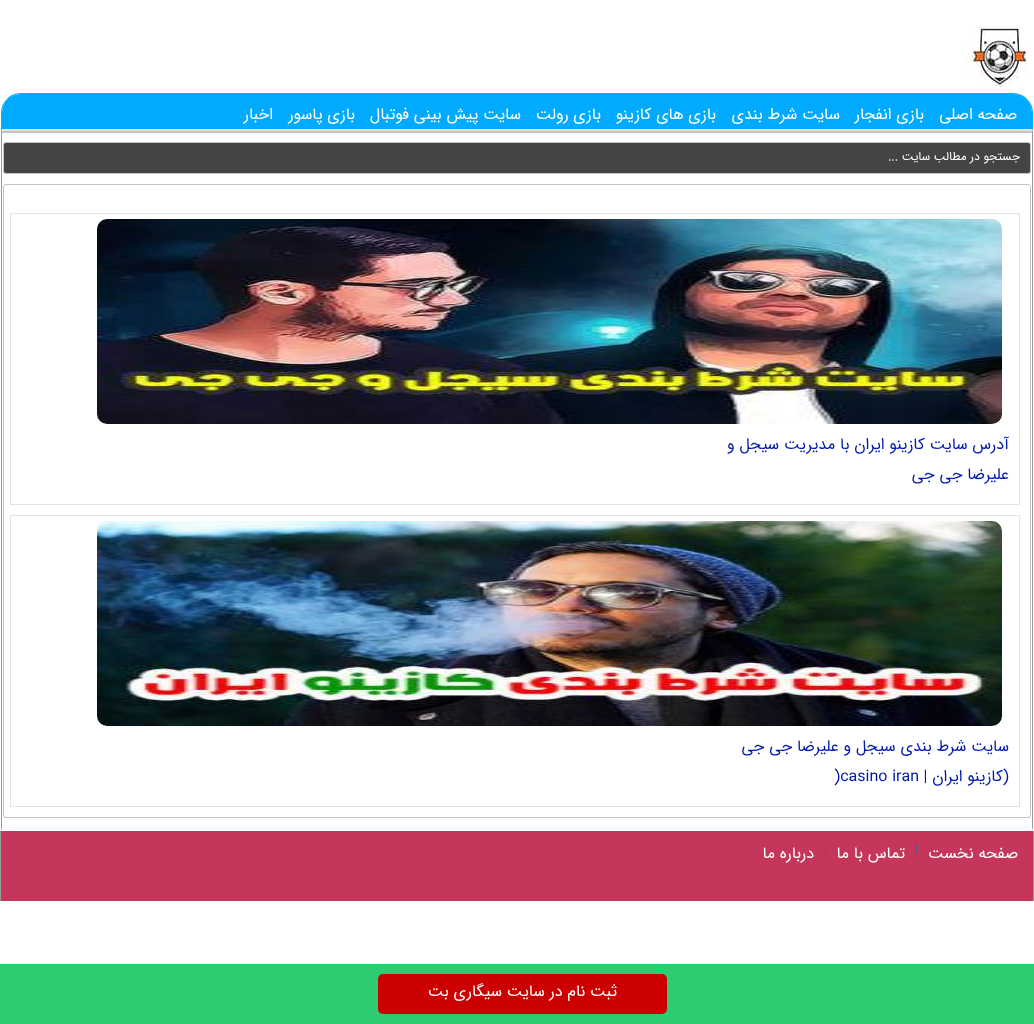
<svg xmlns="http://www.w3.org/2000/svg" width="1034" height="1024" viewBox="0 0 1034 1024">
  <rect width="100%" height="100%" fill="rgb(255,255,255)"/>
  <image x="963" y="25" width="65" height="62" href="pic1.png"/>
  <path d="M21 94H1013C1023.5 94 1032 102.5 1032 113V129H2V113C2 102.5 10.5 94 21 94Z" fill="rgb(0,170,255)"/>
  <path d="M21 93C16 93 10 95 7 99L8 100C11 96 16 94 21 94H1013C1018 94 1023 96 1026 100L1027 99C1024 95 1018 93 1013 93Z" fill="rgb(0,170,255)"/>
  <path d="M1033 131V113C1033 107.5 1031 102.5 1027 99L1026 100C1030 103 1032 108 1032 113V129Z" fill="rgb(0,170,255)"/>
  <path d="M1033 131L1032 129H2L1 131Z" fill="rgb(225,225,225)"/>
  <path d="M1 131L2 129V113C2 108 4 103 8 100L7 99C3 102.5 1 107.5 1 113Z" fill="rgb(0,170,255)"/>
  <g font-family="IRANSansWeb" font-size="16" direction="rtl" fill="rgb(255,255,255)">
    <text x="1017" y="119">صفحه اصلی</text>
    <text x="924" y="119">بازی انفجار</text>
    <text x="840" y="119">سایت شرط بندی</text>
    <text x="716" y="119">بازی های کازینو</text>
    <text x="601" y="119">بازی رولت</text>
    <text x="521" y="119">سایت پیش بینی فوتبال</text>
    <text x="355" y="119">بازی پاسور</text>
    <text x="273" y="119">اخبار</text>
  </g>
  <path d="M1033 131V831L1032 828V131Z" fill="rgb(153,153,153)"/>
  <path d="M1033 831H1L2 828H1032Z" fill="rgb(255,255,255)"/>
  <path d="M1 831V131H2V828Z" fill="rgb(153,153,153)"/>
  <rect x="2" y="131" width="1030" height="2" rx="1" fill="rgb(195,195,195)"/>
  <rect x="3.5" y="142.5" width="1027" height="31" rx="2.5" fill="rgb(68,68,68)" stroke="rgb(195,195,195)"/>
  <text x="1020" y="160" font-family="IRANSansWeb" font-size="12" direction="rtl" fill="rgb(255,255,255)">جستجو در مطالب سایت ...</text>
  <rect x="3.5" y="184.5" width="1027" height="633" rx="2.5" fill="none" stroke="rgb(195,195,195)"/>
  <rect x="10.5" y="213.5" width="1009" height="291" fill="none" stroke="rgb(228,228,228)"/>
  <image x="97" y="219" width="905" height="205" href="pic2.png"/>
  <g font-family="IRANSansWeb" font-size="16" direction="rtl" fill="rgb(0,26,175)">
    <text>
      <tspan x="1009" y="449">آدرس سایت کازینو ایران با مدیریت سیجل و</tspan>
      <tspan x="1009" y="479">علیرضا جی جی</tspan>
    </text>
  </g>
  <rect x="10.5" y="515.5" width="1009" height="291" fill="none" stroke="rgb(228,228,228)"/>
  <image x="97" y="521" width="905" height="205" href="pic3.png"/>
  <g font-family="IRANSansWeb" font-size="16" direction="rtl" fill="rgb(0,26,175)">
    <text>
      <tspan x="1009" y="751">سایت شرط بندی سیجل و علیرضا جی جی</tspan>
      <tspan x="1009" y="781">(کازینو ایران |</tspan>
    </text>
  </g>
  <text x="834" y="781" font-family="IRANSansWeb" font-size="16" fill="rgb(0,26,175)">)casino iran</text>
  <rect x="1" y="831" width="1032" height="70" fill="rgb(198,54,90)"/>
  <rect x="1033" y="831" width="1" height="70" fill="rgb(153,153,153)"/>
  <rect x="0" y="831" width="1" height="70" fill="rgb(153,153,153)"/>
  <text x="1018" y="858" font-family="IRANSansWeb" font-size="16" direction="rtl" fill="rgb(255,255,255)">صفحه نخست</text>
  <text x="915" y="852" font-family="IRANSansWeb" font-size="11" fill="rgb(63,93,157)">|</text>
  <text x="905" y="858" font-family="IRANSansWeb" font-size="16" direction="rtl" fill="rgb(255,255,255)">تماس با ما</text>
  <text x="824" y="852" font-family="IRANSansWeb" font-size="11" fill="rgb(63,93,157)">|</text>
  <text x="814" y="858" font-family="IRANSansWeb" font-size="16" direction="rtl" fill="rgb(255,255,255)">درباره ما</text>
  <rect x="0" y="964" width="1034" height="60" fill="rgb(46,204,113)"/>
  <rect x="378" y="974" width="289" height="40" rx="5" fill="rgb(204,0,0)"/>
  <text x="617" y="996" font-family="IRANSansWeb" font-size="16" direction="rtl" fill="rgb(255,255,255)">ثبت نام در سایت سیگاری بت</text>
</svg>
